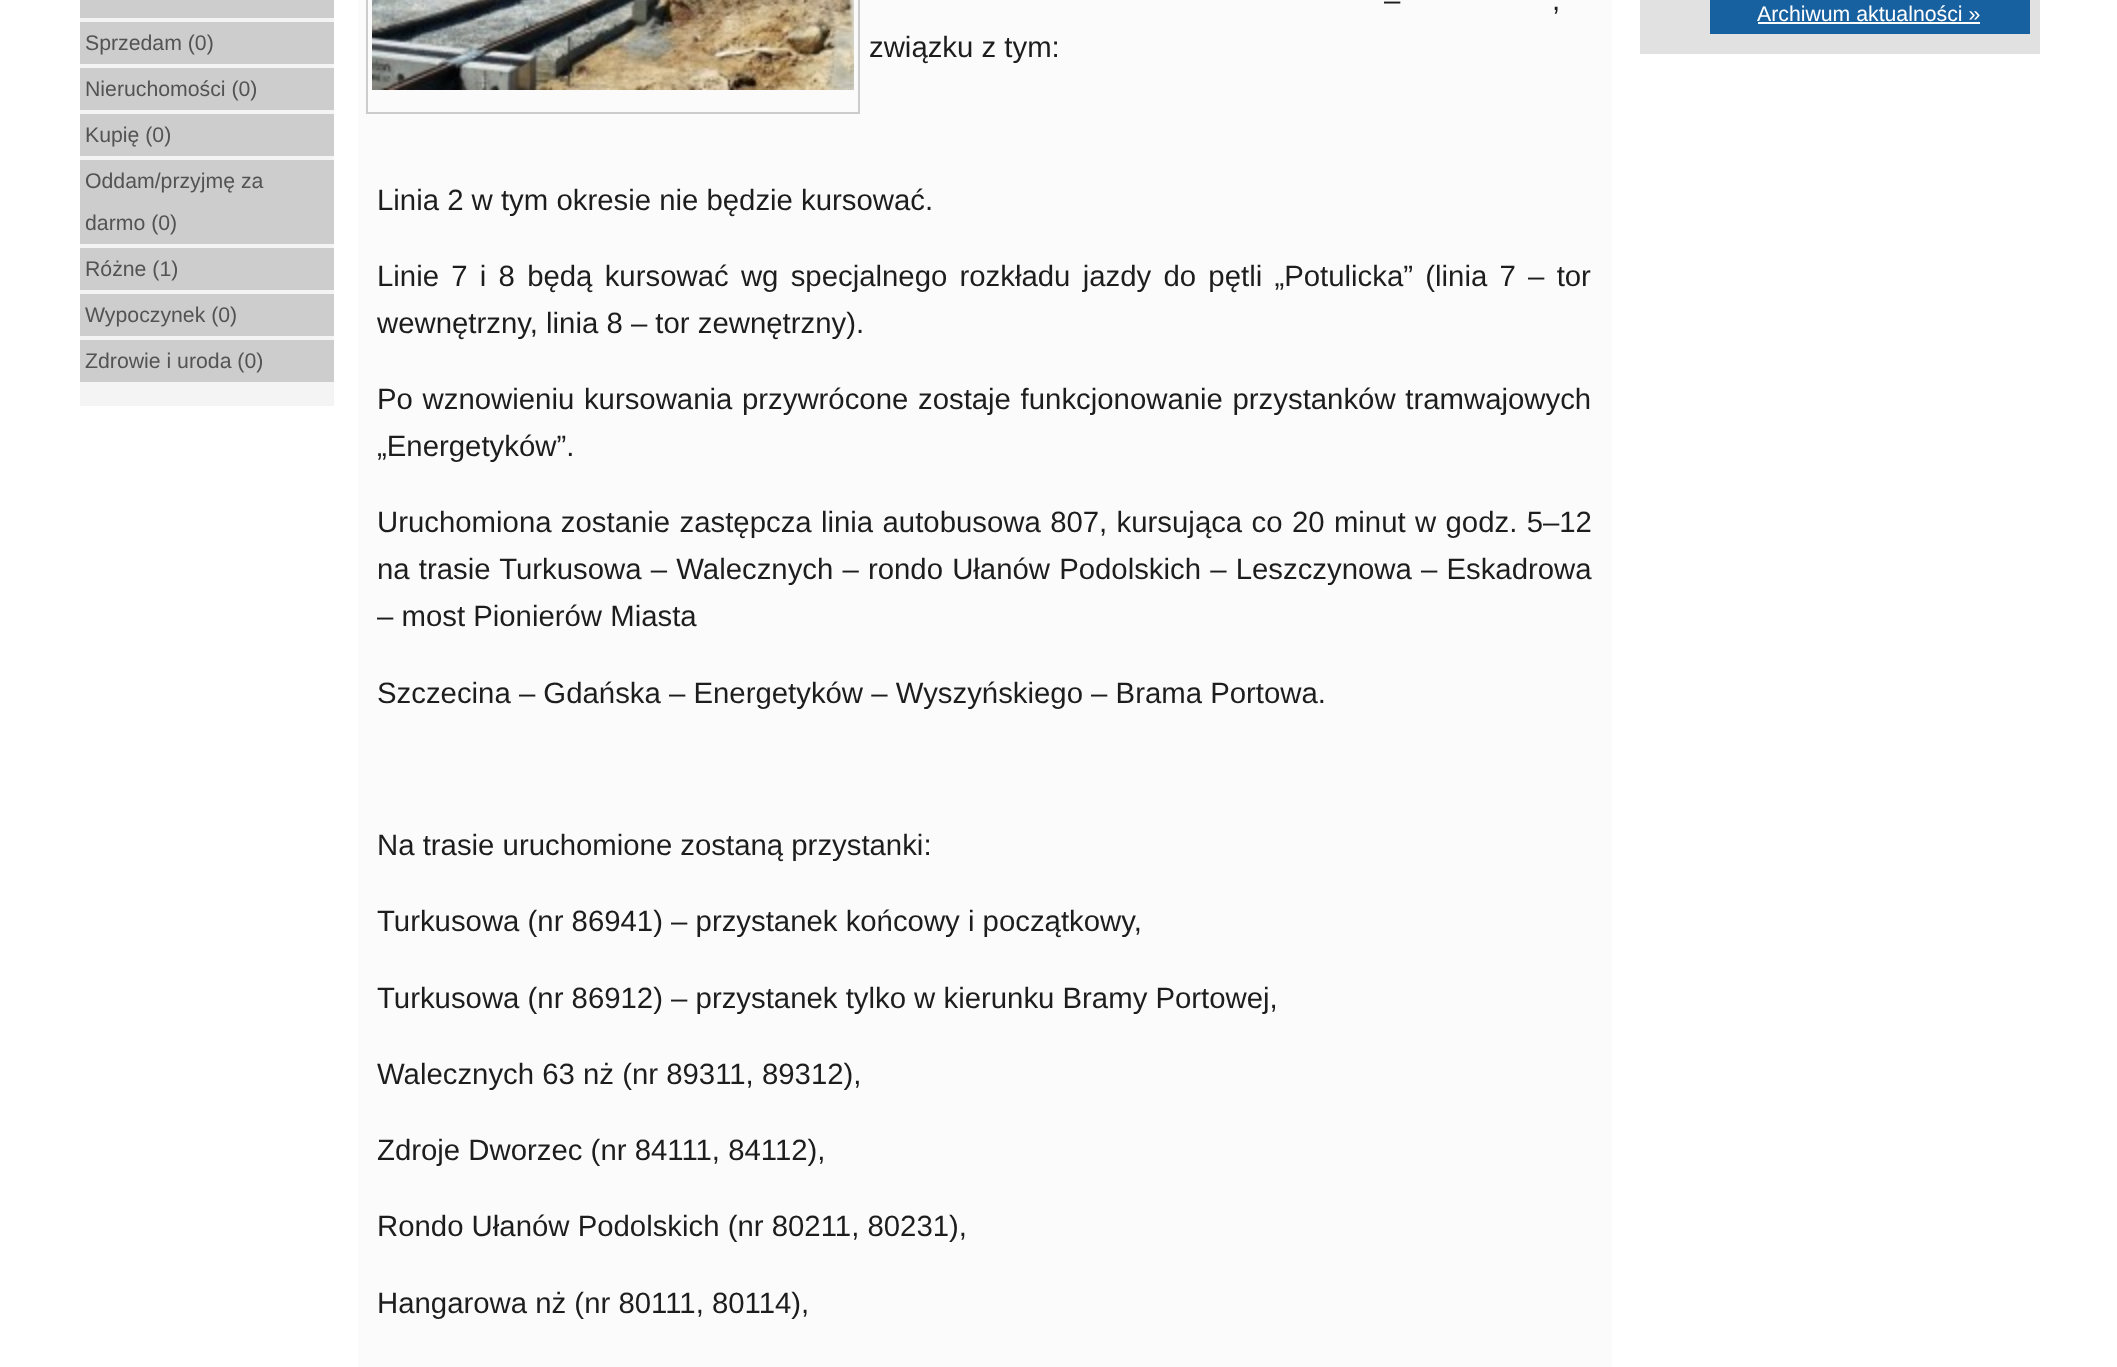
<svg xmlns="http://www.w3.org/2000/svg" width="2117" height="1367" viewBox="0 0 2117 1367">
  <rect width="100%" height="100%" fill="rgb(255,255,255)"/>
  <rect x="358" y="0" width="1254" height="1367" fill="rgb(251,251,251)"/>
  <rect x="367" y="-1" width="492" height="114" fill="none" stroke="rgb(204,204,204)" stroke-width="2"/>
  <image x="372" y="0" width="482" height="90" href="pic1.png"/>
  <g font-family="Liberation Sans" font-size="29.35" fill="rgb(29,29,29)">
    <text x="1384" y="10" word-spacing="2">–</text>
    <text x="1552" y="10" word-spacing="2">,</text>
    <text x="869" y="57">związku z tym:</text>
    <text x="377" y="210">Linia 2 w tym okresie nie będzie kursować.</text>
    <text>
      <tspan x="377" y="286" word-spacing="4.1">Linie 7 i 8 będą kursować wg specjalnego rozkładu jazdy do pętli „Potulicka” (linia 7 – tor</tspan>
      <tspan x="377" y="333">wewnętrzny, linia 8 – tor zewnętrzny).</tspan>
    </text>
    <text>
      <tspan x="377" y="409" word-spacing="1.5">Po wznowieniu kursowania przywrócone zostaje funkcjonowanie przystanków tramwajowych</tspan>
      <tspan x="377" y="456">„Energetyków”.</tspan>
    </text>
    <text>
      <tspan x="377" y="532" word-spacing="1.2">Uruchomiona zostanie zastępcza linia autobusowa 807, kursująca co 20 minut w godz. 5–12</tspan>
      <tspan x="377" y="579" word-spacing="1">na trasie Turkusowa – Walecznych – rondo Ułanów Podolskich – Leszczynowa – Eskadrowa</tspan>
      <tspan x="377" y="626">– most Pionierów Miasta</tspan>
    </text>
    <text x="377" y="703">Szczecina – Gdańska – Energetyków – Wyszyńskiego – Brama Portowa.</text>
    <text x="377" y="855">Na trasie uruchomione zostaną przystanki:</text>
    <text x="377" y="931">Turkusowa (nr 86941) – przystanek końcowy i początkowy,</text>
    <text x="377" y="1008">Turkusowa (nr 86912) – przystanek tylko w kierunku Bramy Portowej,</text>
    <text x="377" y="1084">Walecznych 63 nż (nr 89311, 89312),</text>
    <text x="377" y="1160">Zdroje Dworzec (nr 84111, 84112),</text>
    <text x="377" y="1236">Rondo Ułanów Podolskich (nr 80211, 80231),</text>
    <text x="377" y="1313">Hangarowa nż (nr 80111, 80114),</text>
  </g>
  <rect x="1640" y="0" width="400" height="54" fill="rgb(225,225,225)"/>
  <rect x="1710" y="0" width="320" height="34" fill="rgb(24,97,160)"/>
  <text x="1757" y="21" font-family="Liberation Sans" font-size="21.25" fill="rgb(255,255,255)">Archiwum aktualności »</text>
  <rect x="1758" y="22" width="222" height="2" fill="rgb(255,255,255)"/>
  <rect x="80" y="382" width="254" height="24" fill="rgb(244,244,244)"/>
  <rect x="80" y="0" width="254" height="18" fill="rgb(205,205,205)"/>
  <rect x="80" y="18" width="254" height="4" fill="rgb(244,244,244)"/>
  <rect x="80" y="22" width="254" height="42" fill="rgb(205,205,205)"/>
  <rect x="80" y="64" width="254" height="4" fill="rgb(244,244,244)"/>
  <text x="85" y="50" font-family="Liberation Sans" font-size="21.25" fill="rgb(83,83,83)">Sprzedam (0)</text>
  <rect x="80" y="68" width="254" height="42" fill="rgb(205,205,205)"/>
  <rect x="80" y="110" width="254" height="4" fill="rgb(244,244,244)"/>
  <text x="85" y="96" font-family="Liberation Sans" font-size="21.25" fill="rgb(83,83,83)">Nieruchomości (0)</text>
  <rect x="80" y="114" width="254" height="42" fill="rgb(205,205,205)"/>
  <rect x="80" y="156" width="254" height="4" fill="rgb(244,244,244)"/>
  <text x="85" y="142" font-family="Liberation Sans" font-size="21.25" fill="rgb(83,83,83)">Kupię (0)</text>
  <rect x="80" y="160" width="254" height="84" fill="rgb(205,205,205)"/>
  <rect x="80" y="244" width="254" height="4" fill="rgb(244,244,244)"/>
  <g font-family="Liberation Sans" font-size="21.25" fill="rgb(83,83,83)">
    <text>
      <tspan x="85" y="188">Oddam/przyjmę za</tspan>
      <tspan x="85" y="230">darmo (0)</tspan>
    </text>
  </g>
  <rect x="80" y="248" width="254" height="42" fill="rgb(205,205,205)"/>
  <rect x="80" y="290" width="254" height="4" fill="rgb(244,244,244)"/>
  <text x="85" y="276" font-family="Liberation Sans" font-size="21.25" fill="rgb(83,83,83)">Różne (1)</text>
  <rect x="80" y="294" width="254" height="42" fill="rgb(205,205,205)"/>
  <rect x="80" y="336" width="254" height="4" fill="rgb(244,244,244)"/>
  <text x="85" y="322" font-family="Liberation Sans" font-size="21.25" fill="rgb(83,83,83)">Wypoczynek (0)</text>
  <rect x="80" y="340" width="254" height="42" fill="rgb(205,205,205)"/>
  <text x="85" y="368" font-family="Liberation Sans" font-size="21.25" fill="rgb(83,83,83)">Zdrowie i uroda (0)</text>
</svg>
